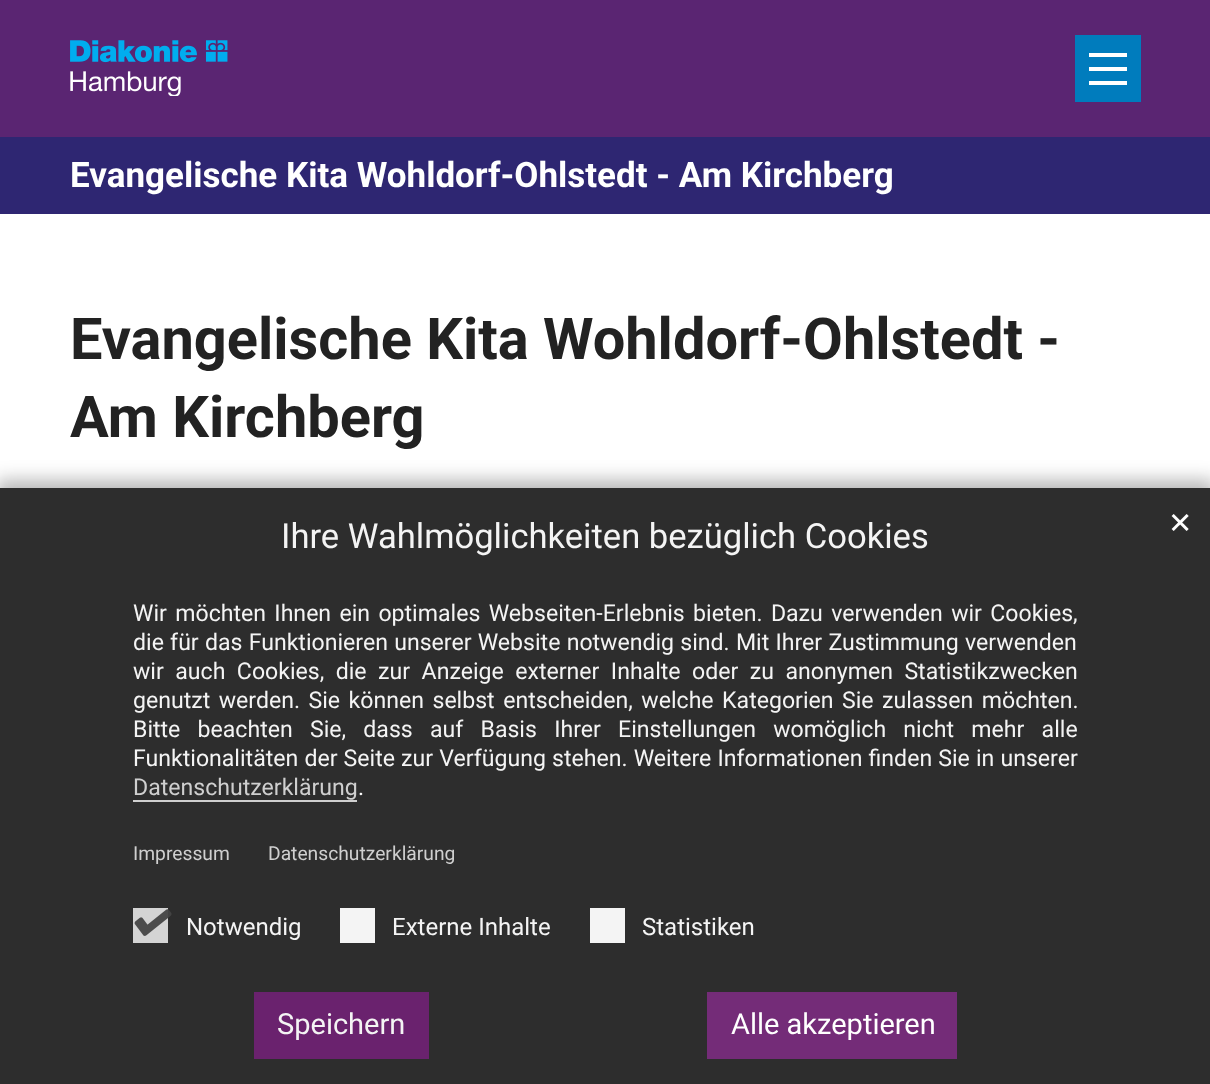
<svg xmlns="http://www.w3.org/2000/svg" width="1210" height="1084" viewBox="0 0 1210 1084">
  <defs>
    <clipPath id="clip1"><path d="M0 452H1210V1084H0ZM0 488H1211V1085H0Z" clip-rule="evenodd"/></clipPath>
  </defs>
  <rect width="100%" height="100%" fill="rgb(255,255,255)"/>
  <rect x="0" y="0" width="1210" height="137" fill="rgb(90,37,114)"/>
  <image x="70" y="40" width="158" height="56" href="pic1.png"/>
  <rect x="1075" y="35" width="66" height="67" fill="rgb(0,124,189)"/>
  <rect x="1089" y="67" width="38" height="4" fill="rgb(255,255,255)"/>
  <rect x="1089" y="53" width="38" height="4" fill="rgb(255,255,255)"/>
  <rect x="1089" y="81" width="38" height="4" fill="rgb(255,255,255)"/>
  <rect x="0" y="137" width="1210" height="77" fill="rgb(46,38,114)"/>
  <text x="70" y="187" font-family="Roboto" font-size="35" font-weight="bold" fill="rgb(255,255,255)">Evangelische Kita Wohldorf-Ohlstedt - Am Kirchberg</text>
  <g font-family="Roboto" font-size="57.75" font-weight="bold" fill="rgb(34,34,34)">
    <text>
      <tspan x="70" y="359">Evangelische Kita Wohldorf-Ohlstedt -</tspan>
      <tspan x="70" y="437">Am Kirchberg</tspan>
    </text>
  </g>
  <rect x="70" y="924" width="1071" height="160" fill="rgb(238,238,238)"/>
  <g clip-path="url(#clip1)">
    <rect x="-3" y="480" width="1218" height="603" fill="rgba(13,13,13,0.3)" filter="blur(9px)"/>
  </g>
  <rect x="0" y="488" width="1210" height="596" fill="rgba(34,34,34,0.95)"/>
  <text x="281" y="548" font-family="Roboto" font-size="34.6" fill="rgb(244,244,244)">Ihre Wahlmöglichkeiten bezüglich Cookies</text>
  <text x="1168" y="533" font-family="DejaVu Sans" font-size="29" fill="rgb(255,255,255)">✕</text>
  <g font-family="Roboto" font-size="23.1" fill="rgb(244,244,244)">
    <text>
      <tspan x="133" y="621" word-spacing="2.6">Wir möchten Ihnen ein optimales Webseiten-Erlebnis bieten. Dazu verwenden wir Cookies,</tspan>
      <tspan x="133" y="650" word-spacing="0.5">die für das Funktionieren unserer Website notwendig sind. Mit Ihrer Zustimmung verwenden</tspan>
      <tspan x="133" y="679" word-spacing="5.75">wir auch Cookies, die zur Anzeige externer Inhalte oder zu anonymen Statistikzwecken</tspan>
      <tspan x="133" y="708" word-spacing="2.75">genutzt werden. Sie können selbst entscheiden, welche Kategorien Sie zulassen möchten.</tspan>
      <tspan x="133" y="737" word-spacing="11.5">Bitte beachten Sie, dass auf Basis Ihrer Einstellungen womöglich nicht mehr alle</tspan>
      <tspan x="133" y="766" word-spacing="0.4">Funktionalitäten der Seite zur Verfügung stehen. Weitere Informationen finden Sie in unserer</tspan>
    </text>
  </g>
  <text x="133" y="795" font-family="Roboto" font-size="23.1" fill="rgb(207,207,207)">Datenschutzerklärung</text>
  <rect x="133" y="800" width="224" height="2" fill="rgb(207,207,207)"/>
  <text x="358" y="795" font-family="Roboto" font-size="23.1" fill="rgb(255,255,255)">.</text>
  <g font-family="Roboto" font-size="19.25" fill="rgb(207,207,207)">
    <text x="133" y="860">Impressum</text>
    <text x="268" y="860">Datenschutzerklärung</text>
  </g>
  <rect x="133" y="908" width="35" height="35" fill="rgb(212,212,212)"/>
  <image x="134" y="909" width="38" height="27" href="pic2.png"/>
  <text x="186" y="935" font-family="Roboto" font-size="24" fill="rgb(244,244,244)">Notwendig</text>
  <rect x="340" y="908" width="35" height="35" fill="rgb(244,244,244)"/>
  <text x="392" y="935" font-family="Roboto" font-size="24" fill="rgb(244,244,244)">Externe Inhalte</text>
  <rect x="590" y="908" width="35" height="35" fill="rgb(244,244,244)"/>
  <text x="642" y="935" font-family="Roboto" font-size="24" fill="rgb(244,244,244)">Statistiken</text>
  <rect x="254" y="992" width="175" height="67" fill="rgba(110,34,114,0.95)"/>
  <text x="277" y="1034" font-family="Roboto" font-size="29" fill="rgb(244,244,244)">Speichern</text>
  <rect x="707" y="992" width="250" height="67" fill="rgb(116,44,120)"/>
  <text x="731" y="1034" font-family="Roboto" font-size="29" fill="rgb(255,255,255)">Alle akzeptieren</text>
</svg>
